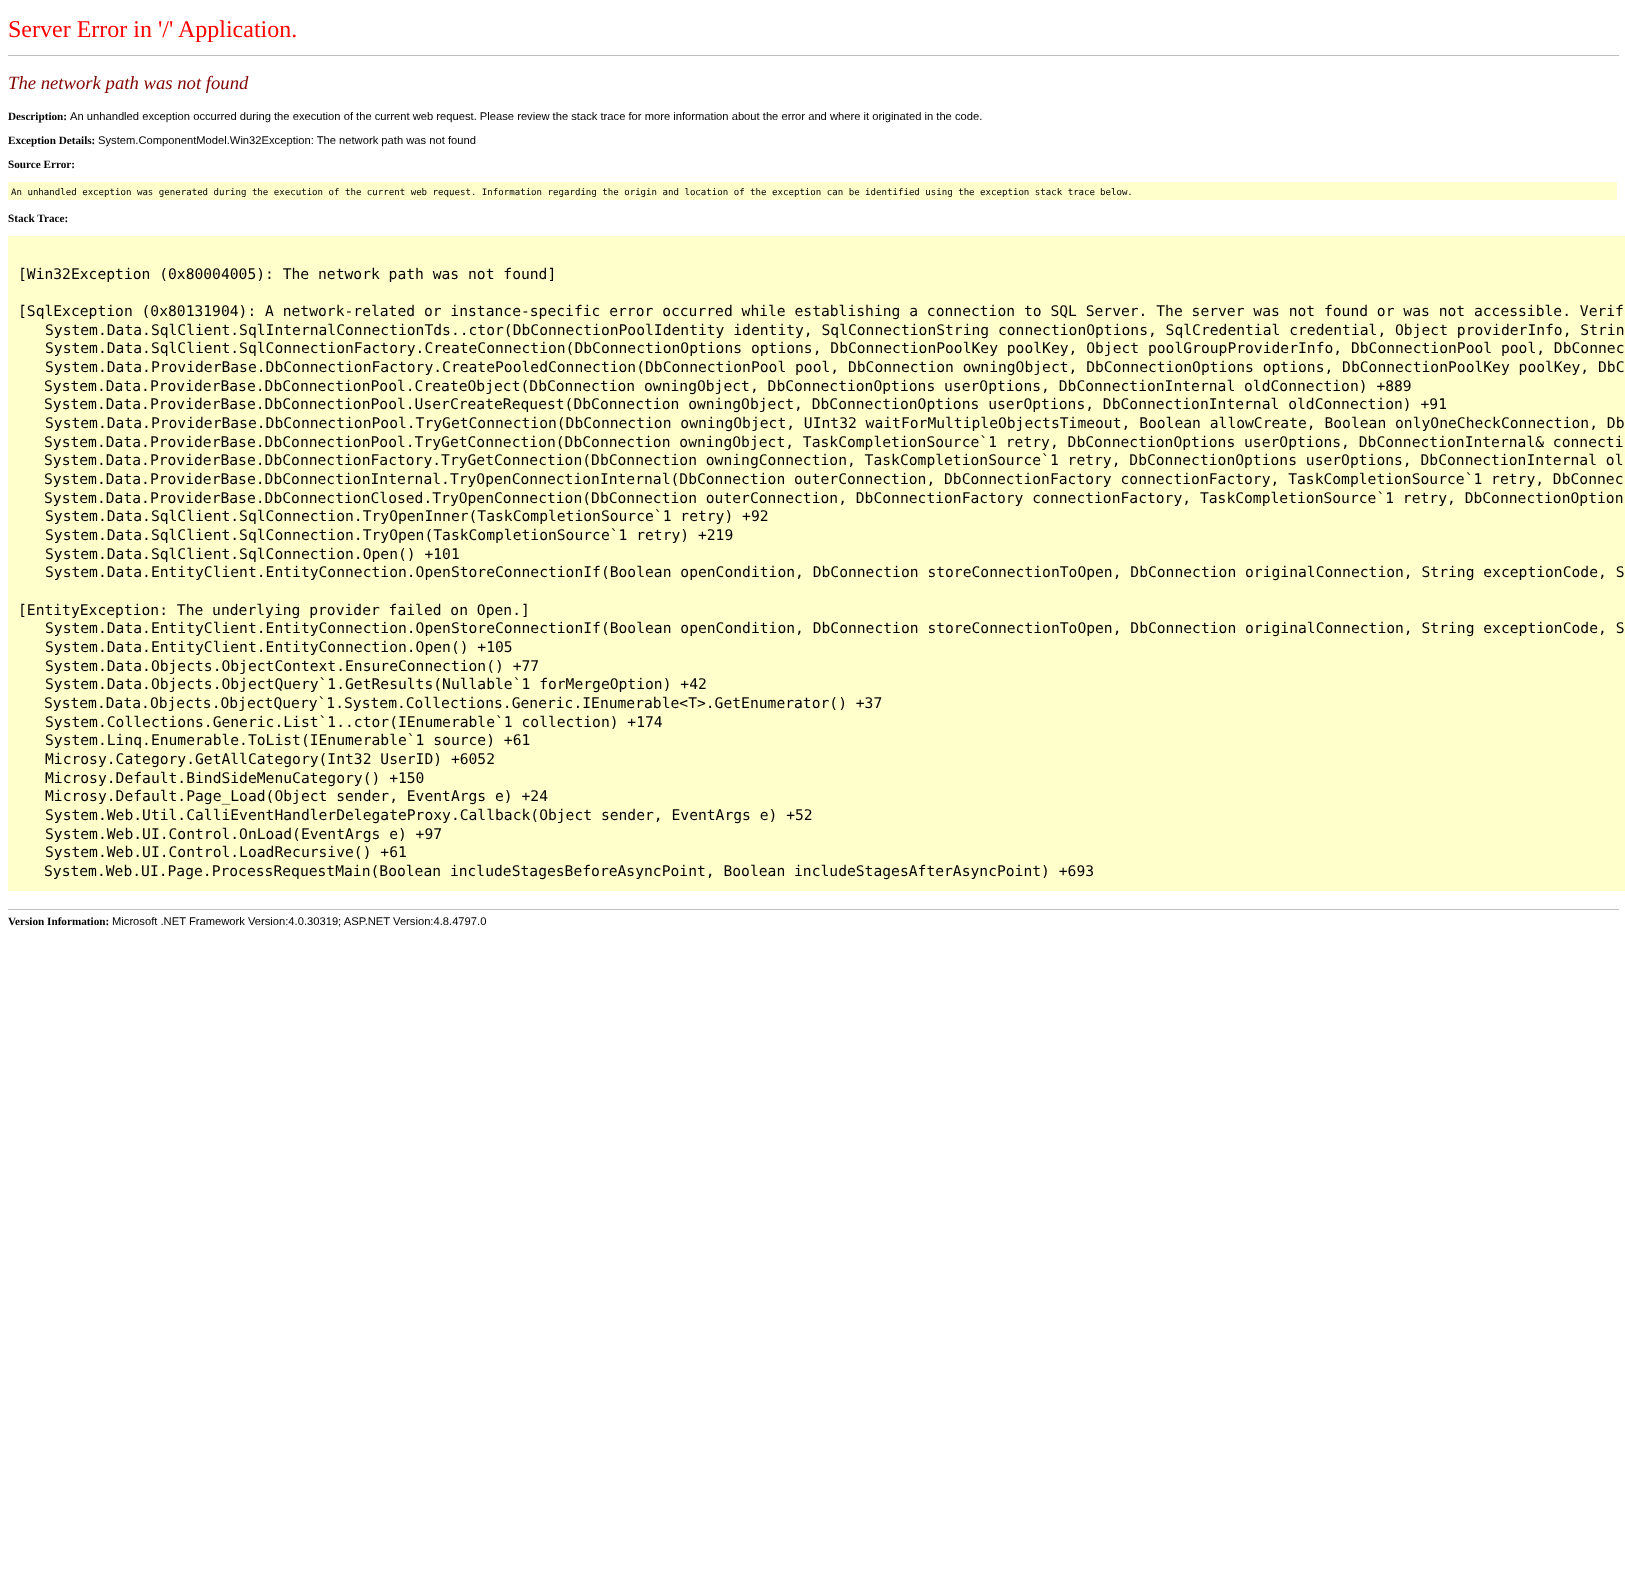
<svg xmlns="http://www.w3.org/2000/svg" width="1625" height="1594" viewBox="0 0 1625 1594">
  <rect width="100%" height="100%" fill="rgb(255,255,255)"/>
  <text x="8" y="37" font-family="Liberation Serif" font-size="24" fill="rgb(255,0,0)">Server Error in '/' Application.</text>
  <rect x="8" y="55" width="1611" height="1" fill="rgb(192,192,192)"/>
  <text x="8" y="89" font-family="Liberation Serif" font-size="18.7" font-style="italic" fill="rgb(128,0,0)">The network path was not found</text>
  <text x="8" y="120" font-family="Liberation Serif" font-size="11.2" font-weight="bold" fill="rgb(0,0,0)">Description:</text>
  <text x="70" y="120" font-family="Liberation Sans" font-size="11.2" fill="rgb(0,0,0)">An unhandled exception occurred during the execution of the current web request. Please review the stack trace for more information about the error and where it originated in the code.</text>
  <text x="8" y="144" font-family="Liberation Serif" font-size="11.2" font-weight="bold" fill="rgb(0,0,0)">Exception Details:</text>
  <text x="98" y="144" font-family="Liberation Sans" font-size="11.2" fill="rgb(0,0,0)">System.ComponentModel.Win32Exception: The network path was not found</text>
  <text x="8" y="168" font-family="Liberation Serif" font-size="11.2" font-weight="bold" fill="rgb(0,0,0)">Source Error:</text>
  <rect x="8" y="182" width="1609" height="18" fill="rgb(255,255,204)"/>
  <text x="11" y="195" font-family="DejaVu Sans Mono" font-size="9.1" fill="rgb(0,0,0)">An unhandled exception was generated during the execution of the current web request. Information regarding the origin and location of the exception can be identified using the exception stack trace</text>
  <text x="1100" y="195" font-family="DejaVu Sans Mono" font-size="9.1" fill="rgb(0,0,0)">below.</text>
  <text x="8" y="222" font-family="Liberation Serif" font-size="11.2" font-weight="bold" fill="rgb(0,0,0)">Stack Trace:</text>
  <rect x="8" y="236" width="1617" height="655" fill="rgb(255,255,204)"/>
  <g font-family="DejaVu Sans Mono" font-size="14.67" fill="rgb(0,0,0)">
    <text x="18" y="279">[Win32Exception (0x80004005): The network path was not found]</text>
    <text x="18" y="316">[SqlException (0x80131904): A network-related or instance-specific error occurred while establishing a connection to SQL Server. The server was not found or was not accessible. Verif</text>
    <text>
      <tspan x="45" y="335">System.Data.SqlClient.SqlInternalConnectionTds..ctor(DbConnectionPoolIdentity identity, SqlConnectionString connectionOptions, SqlCredential credential, Object providerInfo, Strin</tspan>
      <tspan x="45" y="353">System.Data.SqlClient.SqlConnectionFactory.CreateConnection(DbConnectionOptions options, DbConnectionPoolKey poolKey, Object poolGroupProviderInfo, DbConnectionPool pool, DbConnec</tspan>
      <tspan x="45" y="372">System.Data.ProviderBase.DbConnectionFactory.CreatePooledConnection(DbConnectionPool pool, DbConnection owningObject, DbConnectionOptions options, DbConnectionPoolKey poolKey, DbC</tspan>
    </text>
    <text>
      <tspan x="44" y="391">System.Data.ProviderBase.DbConnectionPool.CreateObject(DbConnection owningObject, DbConnectionOptions userOptions, DbConnectionInternal oldConnection) +889</tspan>
      <tspan x="44" y="409">System.Data.ProviderBase.DbConnectionPool.UserCreateRequest(DbConnection owningObject, DbConnectionOptions userOptions, DbConnectionInternal oldConnection) +91</tspan>
    </text>
    <text x="45" y="428">System.Data.ProviderBase.DbConnectionPool.TryGetConnection(DbConnection owningObject, UInt32 waitForMultipleObjectsTimeout, Boolean allowCreate, Boolean onlyOneCheckConnection, Db</text>
    <text>
      <tspan x="44" y="447">System.Data.ProviderBase.DbConnectionPool.TryGetConnection(DbConnection owningObject, TaskCompletionSource`1 retry, DbConnectionOptions userOptions, DbConnectionInternal&amp; connecti</tspan>
      <tspan x="44" y="465">System.Data.ProviderBase.DbConnectionFactory.TryGetConnection(DbConnection owningConnection, TaskCompletionSource`1 retry, DbConnectionOptions userOptions, DbConnectionInternal ol</tspan>
      <tspan x="44" y="484">System.Data.ProviderBase.DbConnectionInternal.TryOpenConnectionInternal(DbConnection outerConnection, DbConnectionFactory connectionFactory, TaskCompletionSource`1 retry, DbConnec</tspan>
      <tspan x="44" y="503">System.Data.ProviderBase.DbConnectionClosed.TryOpenConnection(DbConnection outerConnection, DbConnectionFactory connectionFactory, TaskCompletionSource`1 retry, DbConnectionOption</tspan>
    </text>
    <text>
      <tspan x="45" y="521">System.Data.SqlClient.SqlConnection.TryOpenInner(TaskCompletionSource`1 retry) +92</tspan>
      <tspan x="45" y="540">System.Data.SqlClient.SqlConnection.TryOpen(TaskCompletionSource`1 retry) +219</tspan>
      <tspan x="45" y="559">System.Data.SqlClient.SqlConnection.Open() +101</tspan>
      <tspan x="45" y="577">System.Data.EntityClient.EntityConnection.OpenStoreConnectionIf(Boolean openCondition, DbConnection storeConnectionToOpen, DbConnection originalConnection, String exceptionCode, S</tspan>
    </text>
    <text x="18" y="615">[EntityException: The underlying provider failed on Open.]</text>
    <text>
      <tspan x="45" y="633">System.Data.EntityClient.EntityConnection.OpenStoreConnectionIf(Boolean openCondition, DbConnection storeConnectionToOpen, DbConnection originalConnection, String exceptionCode, S</tspan>
      <tspan x="45" y="652">System.Data.EntityClient.EntityConnection.Open() +105</tspan>
      <tspan x="45" y="671">System.Data.Objects.ObjectContext.EnsureConnection() +77</tspan>
      <tspan x="45" y="689">System.Data.Objects.ObjectQuery`1.GetResults(Nullable`1 forMergeOption) +42</tspan>
    </text>
    <text x="44" y="708">System.Data.Objects.ObjectQuery`1.System.Collections.Generic.IEnumerable&lt;T&gt;.GetEnumerator() +37</text>
    <text>
      <tspan x="45" y="727">System.Collections.Generic.List`1..ctor(IEnumerable`1 collection) +174</tspan>
      <tspan x="45" y="745">System.Linq.Enumerable.ToList(IEnumerable`1 source) +61</tspan>
      <tspan x="45" y="764">Microsy.Category.GetAllCategory(Int32 UserID) +6052</tspan>
      <tspan x="45" y="783">Microsy.Default.BindSideMenuCategory() +150</tspan>
      <tspan x="45" y="801">Microsy.Default.Page_Load(Object sender, EventArgs e) +24</tspan>
      <tspan x="45" y="820">System.Web.Util.CalliEventHandlerDelegateProxy.Callback(Object sender, EventArgs e) +52</tspan>
      <tspan x="45" y="839">System.Web.UI.Control.OnLoad(EventArgs e) +97</tspan>
      <tspan x="45" y="857">System.Web.UI.Control.LoadRecursive() +61</tspan>
    </text>
    <text x="44" y="876">System.Web.UI.Page.ProcessRequestMain(Boolean includeStagesBeforeAsyncPoint, Boolean includeStagesAfterAsyncPoint) +693</text>
  </g>
  <rect x="8" y="909" width="1611" height="1" fill="rgb(192,192,192)"/>
  <text x="8" y="925" font-family="Liberation Serif" font-size="11.2" font-weight="bold" fill="rgb(0,0,0)">Version Information:</text>
  <text x="112" y="925" font-family="Liberation Sans" font-size="11.2" fill="rgb(0,0,0)">Microsoft .NET Framework Version:4.0.30319; ASP.NET Version:4.8.4797.0</text>
</svg>
